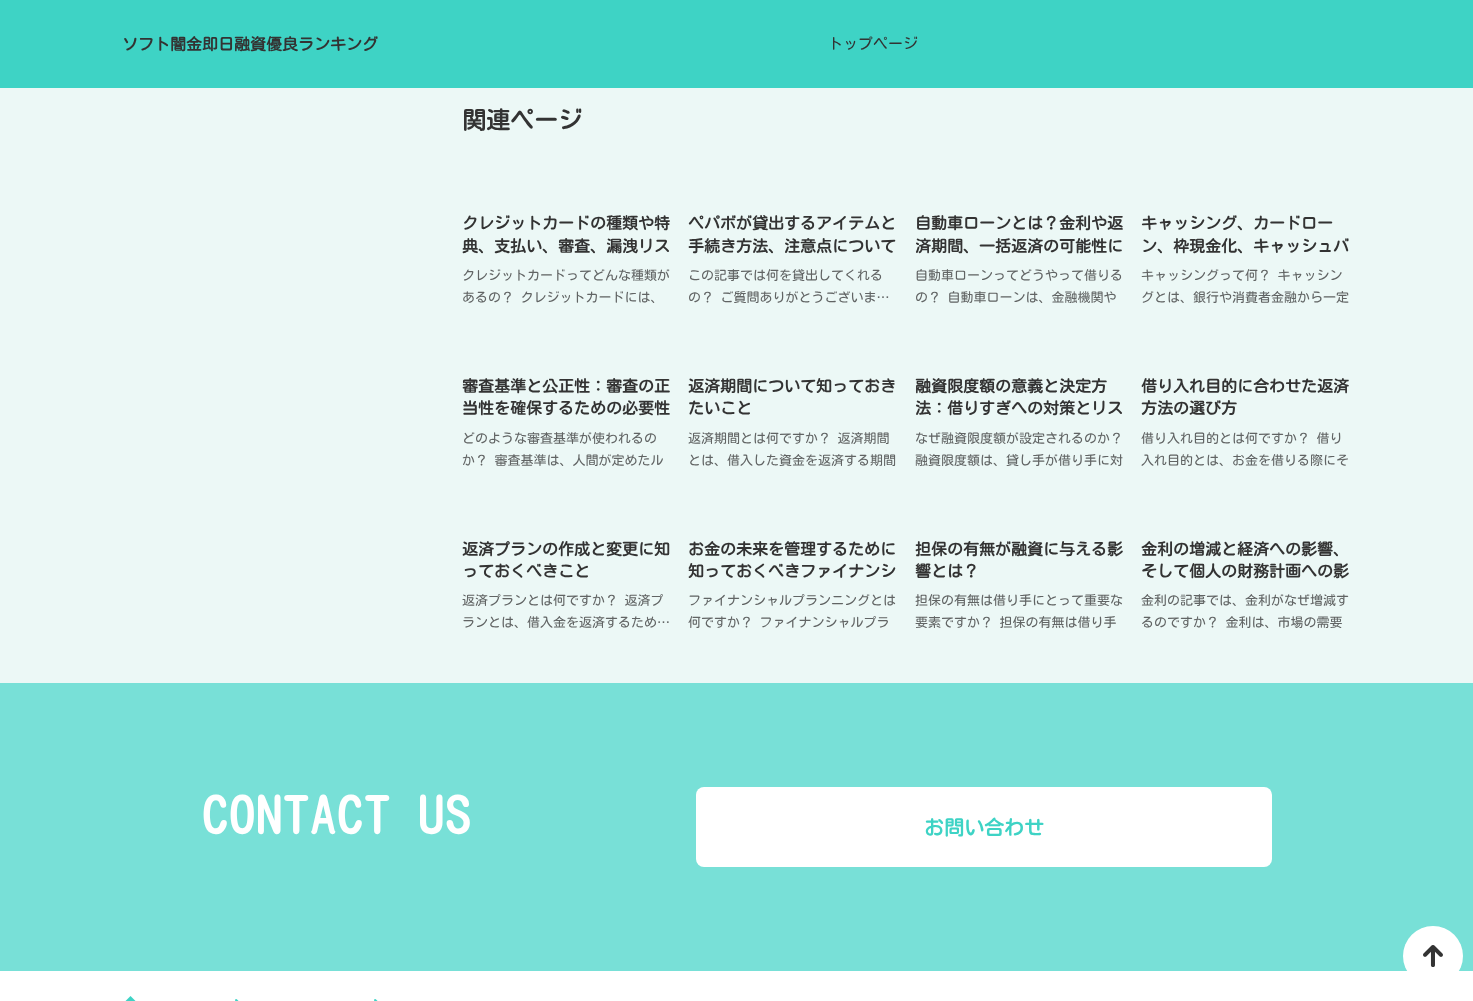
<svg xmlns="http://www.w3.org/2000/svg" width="1473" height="1001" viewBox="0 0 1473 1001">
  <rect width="100%" height="100%" fill="rgb(236,248,246)"/>
  <rect x="0" y="0" width="1473" height="88" fill="rgb(62,211,197)"/>
  <text x="122" y="50" font-family="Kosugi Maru" font-size="16" font-weight="bold" fill="rgb(51,51,51)">ソフト闇金即日融資優良ランキング</text>
  <text x="828" y="49" font-family="Kosugi Maru" font-size="15" fill="rgb(51,51,51)">トップページ</text>
  <text x="462" y="129" font-family="Kosugi Maru" font-size="24" font-weight="bold" fill="rgb(51,51,51)">関連ページ</text>
  <g font-family="Kosugi Maru" font-size="16" font-weight="bold" fill="rgb(51,51,51)">
    <text>
      <tspan x="462" y="229">クレジットカードの種類や特</tspan>
      <tspan x="462" y="252">典、支払い、審査、漏洩リス</tspan>
    </text>
  </g>
  <g font-family="Kosugi Maru" font-size="13" fill="rgb(97,100,100)">
    <text>
      <tspan x="462" y="280">クレジットカードってどんな種類が</tspan>
      <tspan x="462" y="302">あるの？ クレジットカードには、</tspan>
    </text>
  </g>
  <g font-family="Kosugi Maru" font-size="16" font-weight="bold" fill="rgb(51,51,51)">
    <text>
      <tspan x="688" y="229">ペパボが貸出するアイテムと</tspan>
      <tspan x="688" y="252">手続き方法、注意点について</tspan>
    </text>
  </g>
  <g font-family="Kosugi Maru" font-size="13" fill="rgb(97,100,100)">
    <text>
      <tspan x="688" y="280">この記事では何を貸出してくれる</tspan>
      <tspan x="688" y="302">の？ ご質問ありがとうございま…</tspan>
    </text>
  </g>
  <g font-family="Kosugi Maru" font-size="16" font-weight="bold" fill="rgb(51,51,51)">
    <text>
      <tspan x="915" y="229">自動車ローンとは？金利や返</tspan>
      <tspan x="915" y="252">済期間、一括返済の可能性に</tspan>
    </text>
  </g>
  <g font-family="Kosugi Maru" font-size="13" fill="rgb(97,100,100)">
    <text>
      <tspan x="915" y="280">自動車ローンってどうやって借りる</tspan>
      <tspan x="915" y="302">の？ 自動車ローンは、金融機関や</tspan>
    </text>
  </g>
  <g font-family="Kosugi Maru" font-size="16" font-weight="bold" fill="rgb(51,51,51)">
    <text>
      <tspan x="1141" y="229">キャッシング、カードロー</tspan>
      <tspan x="1141" y="252">ン、枠現金化、キャッシュバ</tspan>
    </text>
  </g>
  <g font-family="Kosugi Maru" font-size="13" fill="rgb(97,100,100)">
    <text>
      <tspan x="1141" y="280">キャッシングって何？ キャッシン</tspan>
      <tspan x="1141" y="302">グとは、銀行や消費者金融から一定</tspan>
    </text>
  </g>
  <g font-family="Kosugi Maru" font-size="16" font-weight="bold" fill="rgb(51,51,51)">
    <text>
      <tspan x="462" y="392">審査基準と公正性：審査の正</tspan>
      <tspan x="462" y="414">当性を確保するための必要性</tspan>
    </text>
  </g>
  <g font-family="Kosugi Maru" font-size="13" fill="rgb(97,100,100)">
    <text>
      <tspan x="462" y="443">どのような審査基準が使われるの</tspan>
      <tspan x="462" y="465">か？ 審査基準は、人間が定めたル</tspan>
    </text>
  </g>
  <g font-family="Kosugi Maru" font-size="16" font-weight="bold" fill="rgb(51,51,51)">
    <text>
      <tspan x="688" y="392">返済期間について知っておき</tspan>
      <tspan x="688" y="414">たいこと</tspan>
    </text>
  </g>
  <g font-family="Kosugi Maru" font-size="13" fill="rgb(97,100,100)">
    <text>
      <tspan x="688" y="443">返済期間とは何ですか？ 返済期間</tspan>
      <tspan x="688" y="465">とは、借入した資金を返済する期間</tspan>
    </text>
  </g>
  <g font-family="Kosugi Maru" font-size="16" font-weight="bold" fill="rgb(51,51,51)">
    <text>
      <tspan x="915" y="392">融資限度額の意義と決定方</tspan>
      <tspan x="915" y="414">法：借りすぎへの対策とリス</tspan>
    </text>
  </g>
  <g font-family="Kosugi Maru" font-size="13" fill="rgb(97,100,100)">
    <text>
      <tspan x="915" y="443">なぜ融資限度額が設定されるのか？</tspan>
      <tspan x="915" y="465">融資限度額は、貸し手が借り手に対</tspan>
    </text>
  </g>
  <g font-family="Kosugi Maru" font-size="16" font-weight="bold" fill="rgb(51,51,51)">
    <text>
      <tspan x="1141" y="392">借り入れ目的に合わせた返済</tspan>
      <tspan x="1141" y="414">方法の選び方</tspan>
    </text>
  </g>
  <g font-family="Kosugi Maru" font-size="13" fill="rgb(97,100,100)">
    <text>
      <tspan x="1141" y="443">借り入れ目的とは何ですか？ 借り</tspan>
      <tspan x="1141" y="465">入れ目的とは、お金を借りる際にそ</tspan>
    </text>
  </g>
  <g font-family="Kosugi Maru" font-size="16" font-weight="bold" fill="rgb(51,51,51)">
    <text>
      <tspan x="462" y="555">返済プランの作成と変更に知</tspan>
      <tspan x="462" y="577">っておくべきこと</tspan>
    </text>
  </g>
  <g font-family="Kosugi Maru" font-size="13" fill="rgb(97,100,100)">
    <text>
      <tspan x="462" y="605">返済プランとは何ですか？ 返済プ</tspan>
      <tspan x="462" y="627">ランとは、借入金を返済するため…</tspan>
    </text>
  </g>
  <g font-family="Kosugi Maru" font-size="16" font-weight="bold" fill="rgb(51,51,51)">
    <text>
      <tspan x="688" y="555">お金の未来を管理するために</tspan>
      <tspan x="688" y="577">知っておくべきファイナンシ</tspan>
    </text>
  </g>
  <g font-family="Kosugi Maru" font-size="13" fill="rgb(97,100,100)">
    <text>
      <tspan x="688" y="605">ファイナンシャルプランニングとは</tspan>
      <tspan x="688" y="627">何ですか？ ファイナンシャルプラ</tspan>
    </text>
  </g>
  <g font-family="Kosugi Maru" font-size="16" font-weight="bold" fill="rgb(51,51,51)">
    <text>
      <tspan x="915" y="555">担保の有無が融資に与える影</tspan>
      <tspan x="915" y="577">響とは？</tspan>
    </text>
  </g>
  <g font-family="Kosugi Maru" font-size="13" fill="rgb(97,100,100)">
    <text>
      <tspan x="915" y="605">担保の有無は借り手にとって重要な</tspan>
      <tspan x="915" y="627">要素ですか？ 担保の有無は借り手</tspan>
    </text>
  </g>
  <g font-family="Kosugi Maru" font-size="16" font-weight="bold" fill="rgb(51,51,51)">
    <text>
      <tspan x="1141" y="555">金利の増減と経済への影響、</tspan>
      <tspan x="1141" y="577">そして個人の財務計画への影</tspan>
    </text>
  </g>
  <g font-family="Kosugi Maru" font-size="13" fill="rgb(97,100,100)">
    <text>
      <tspan x="1141" y="605">金利の記事では、金利がなぜ増減す</tspan>
      <tspan x="1141" y="627">るのですか？ 金利は、市場の需要</tspan>
    </text>
  </g>
  <rect x="0" y="683" width="1473" height="288" fill="rgb(120,224,215)"/>
  <text x="202" y="834" font-family="Kosugi Maru" font-size="50" font-weight="bold" letter-spacing="2" fill="rgb(255,255,255)">CONTACT US</text>
  <rect x="696" y="787" width="576" height="80" rx="8" fill="rgb(255,255,255)"/>
  <text x="924" y="835" font-family="Kosugi Maru" font-size="20" font-weight="bold" fill="rgb(62,211,197)">お問い合わせ</text>
  <rect x="0" y="971" width="1473" height="30" fill="rgb(255,255,255)"/>
  <circle cx="1433" cy="956" r="30" fill="rgb(255,255,255)"/>
  <image x="1423" y="945" width="20" height="22" href="pic1.png"/>
  <image x="125" y="996" width="11" height="5" href="pic2.png"/>
  <image x="235" y="999" width="4" height="2" href="pic3.png"/>
  <image x="374" y="999" width="4" height="2" href="pic3.png"/>
</svg>
